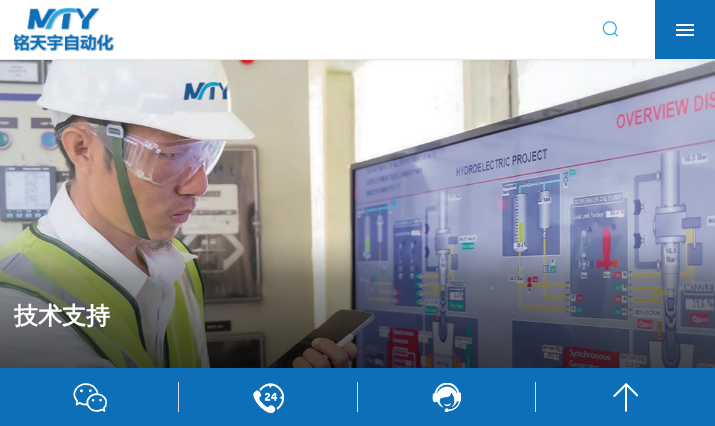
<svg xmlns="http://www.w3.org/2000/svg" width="715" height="426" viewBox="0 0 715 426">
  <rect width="100%" height="100%" fill="rgb(255,255,255)"/>
  <rect x="0" y="59" width="715" height="1" fill="rgb(230,230,230)"/>
  <image x="14" y="7" width="100" height="45" href="pic1.png"/>
  <image x="602" y="21" width="16" height="16" href="pic2.png"/>
  <rect x="655" y="0" width="60" height="59" fill="rgb(13,111,184)"/>
  <rect x="676" y="29" width="18" height="2" fill="rgb(255,255,255)"/>
  <rect x="676" y="24" width="18" height="2" fill="rgb(255,255,255)"/>
  <rect x="676" y="34" width="18" height="2" fill="rgb(255,255,255)"/>
  <image x="0" y="60" width="715" height="308" href="pic3.png"/>
  <text x="14" y="324" font-family="WenQuanYi Zen Hei" font-size="24" font-weight="bold" fill="rgb(255,255,255)">技术支持</text>
  <rect x="0" y="368" width="715" height="58" fill="rgb(13,111,184)"/>
  <image x="73" y="383" width="34" height="29" href="pic4.png"/>
  <rect x="178" y="382" width="1" height="30" fill="rgb(219,219,219)"/>
  <image x="253" y="383" width="31" height="30" href="pic5.png"/>
  <rect x="357" y="382" width="1" height="30" fill="rgb(219,219,219)"/>
  <image x="432" y="383" width="29" height="29" href="pic6.png"/>
  <rect x="535" y="382" width="1" height="30" fill="rgb(219,219,219)"/>
  <image x="613" y="383" width="25" height="29" href="pic7.png"/>
</svg>
